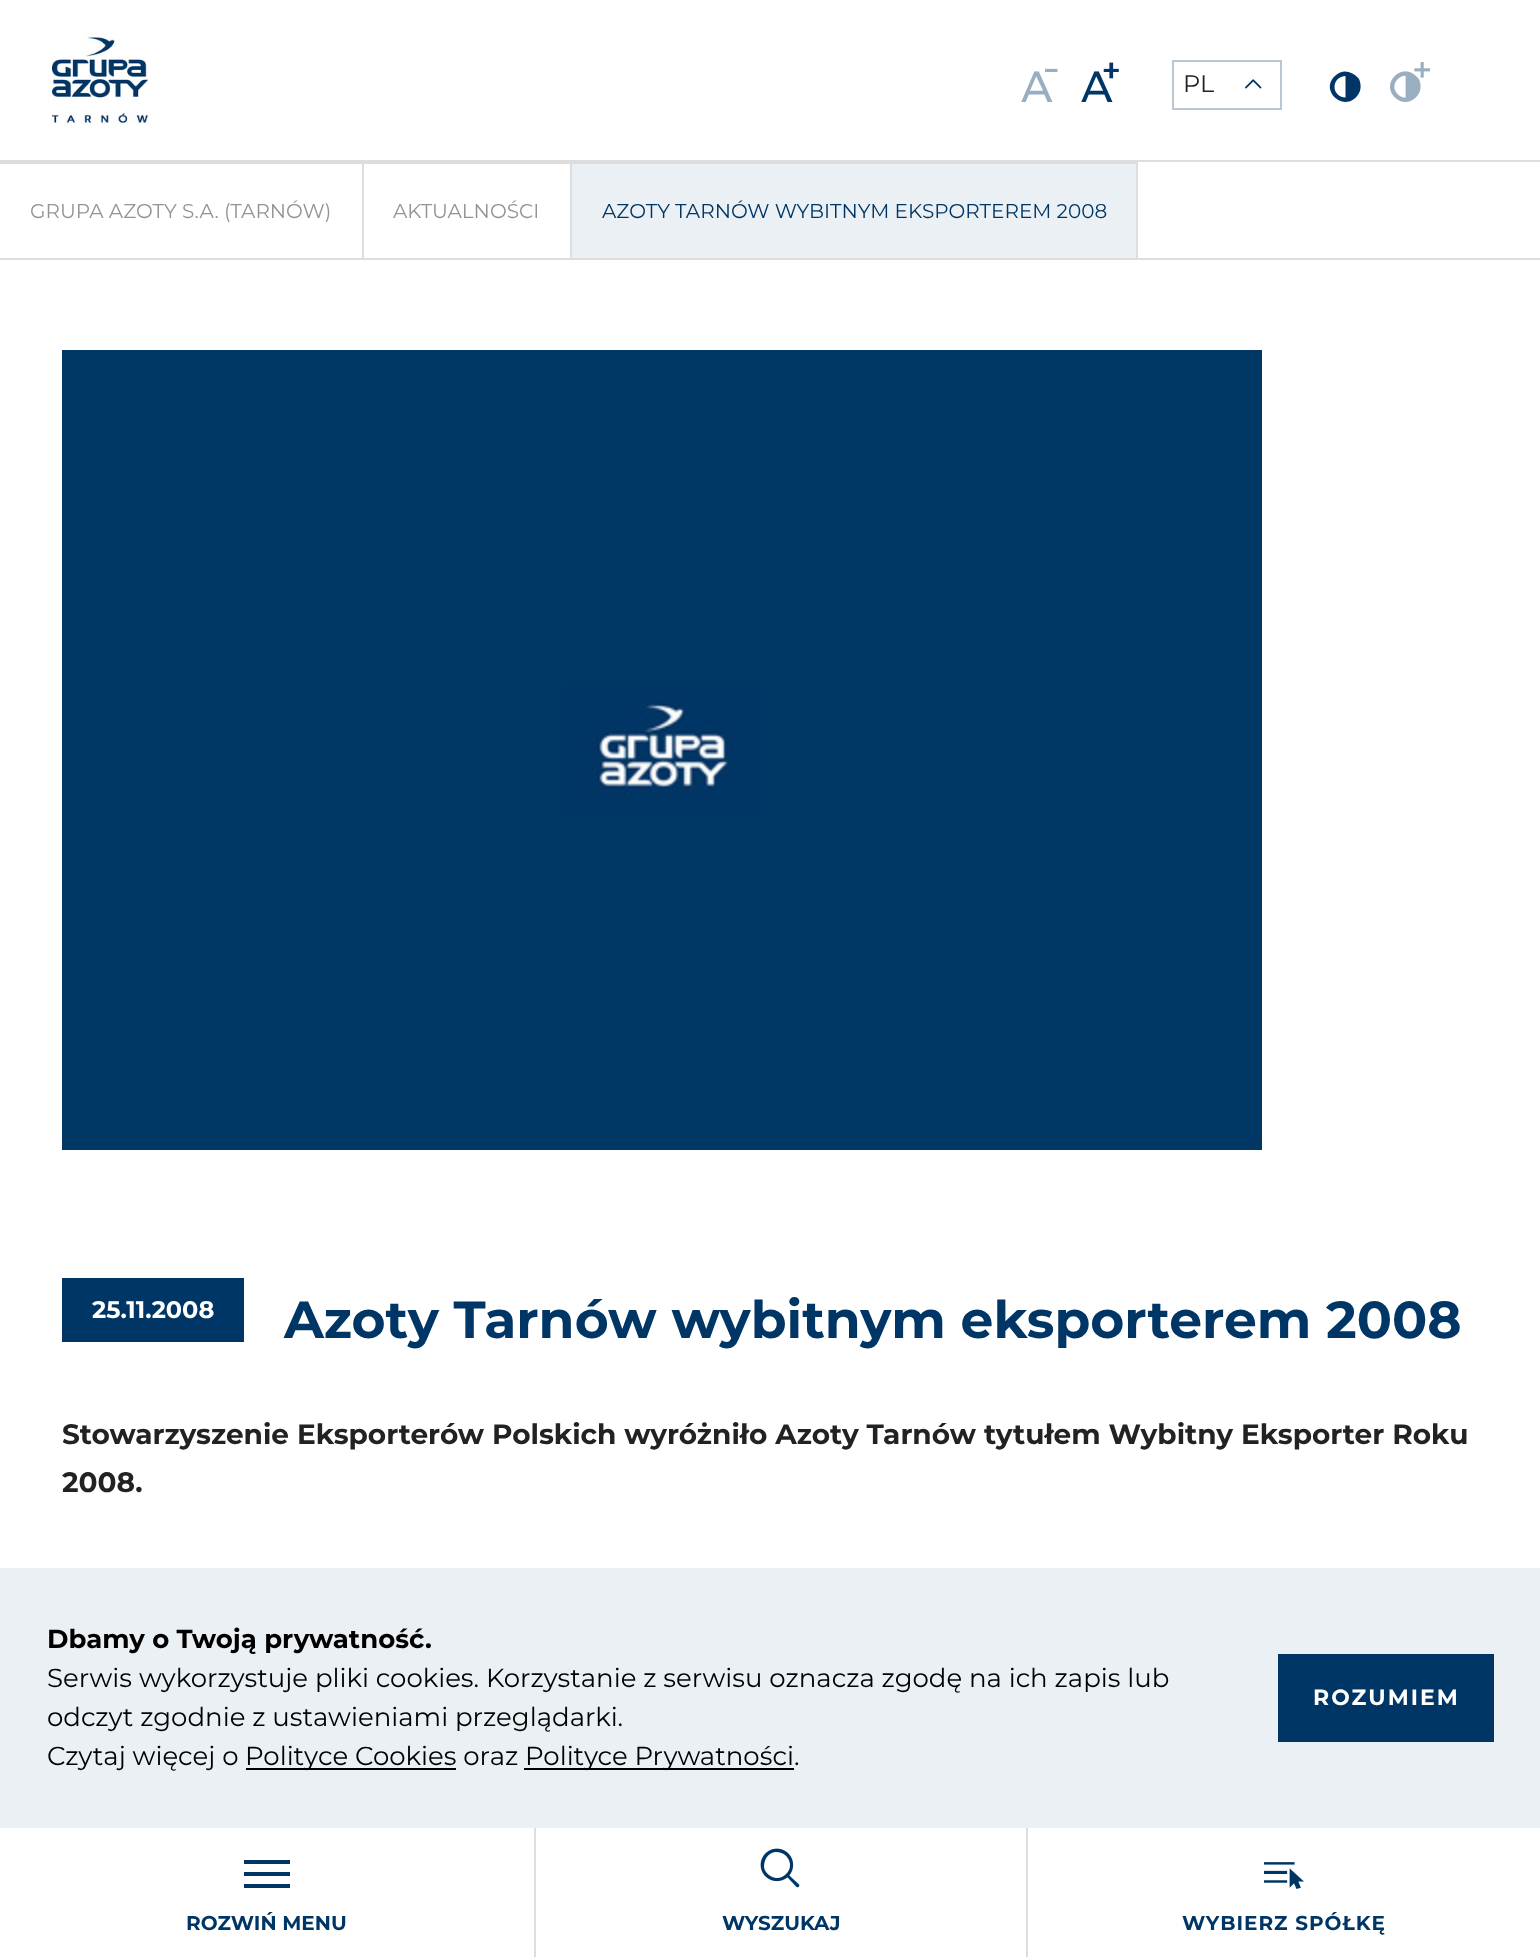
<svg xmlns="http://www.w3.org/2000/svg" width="1540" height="1957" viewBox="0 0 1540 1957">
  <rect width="100%" height="100%" fill="rgb(255,255,255)"/>
  <image x="52" y="32" width="96" height="93" href="pic1.png"/>
  <image x="1021" y="68" width="37" height="34" href="pic2.png"/>
  <image x="1081" y="62" width="38" height="40" href="pic3.png"/>
  <rect x="1173" y="61" width="108" height="48" fill="none" stroke="rgb(182,198,212)" stroke-width="2"/>
  <text x="1183" y="92" font-family="Montserrat" font-size="24" fill="rgb(34,34,34)">PL</text>
  <image x="1245" y="79" width="17" height="10" href="pic4.png"/>
  <path d="M1359 79C1352.5 71.5 1343 68.5 1335.5 75.5C1318 90.5 1345.5 114.5 1358.5 94C1361.5 89.5 1361 83.5 1359 79ZM1345.5 97.5C1335.5 97.5 1330.5 85.5 1338.5 78.5C1340.5 77 1343 76 1345.5 76Z" fill="rgb(0,54,101)"/>
  <image x="1390" y="62" width="40" height="40" href="pic5.png"/>
  <rect x="534" y="1828" width="2" height="129" fill="rgb(221,221,221)"/>
  <rect x="244" y="1860" width="46" height="4" fill="rgb(0,54,101)"/>
  <rect x="244" y="1872" width="46" height="4" fill="rgb(0,54,101)"/>
  <rect x="244" y="1884" width="46" height="4" fill="rgb(0,54,101)"/>
  <text x="186" y="1930" font-family="Montserrat" font-size="20" font-weight="bold" fill="rgb(0,54,101)">ROZWIŃ MENU</text>
  <image x="760" y="1848" width="40" height="40" href="pic6.png"/>
  <text x="722" y="1930" font-family="Montserrat" font-size="20" font-weight="bold" fill="rgb(0,54,101)">WYSZUKAJ</text>
  <rect x="1026" y="1826" width="2" height="131" fill="rgb(221,221,221)"/>
  <image x="1264" y="1862" width="40" height="27" href="pic7.png"/>
  <text x="1182" y="1930" font-family="Montserrat" font-size="20" font-weight="bold" letter-spacing="1" fill="rgb(0,54,101)">WYBIERZ SPÓŁKĘ</text>
  <rect x="0" y="160" width="1540" height="2" fill="rgb(221,221,221)"/>
  <rect x="0" y="258" width="1540" height="2" fill="rgb(221,221,221)"/>
  <rect x="0" y="162" width="1138" height="2" fill="rgb(221,221,221)"/>
  <rect x="362" y="162" width="2" height="96" fill="rgb(221,221,221)"/>
  <text x="30" y="218" font-family="Montserrat" font-size="20" fill="rgb(148,148,148)">GRUPA AZOTY S.A. (TARNÓW)</text>
  <rect x="570" y="162" width="2" height="96" fill="rgb(221,221,221)"/>
  <text x="393" y="218" font-family="Montserrat" font-size="20" fill="rgb(148,148,148)">AKTUALNOŚCI</text>
  <rect x="1136" y="162" width="2" height="96" fill="rgb(221,221,221)"/>
  <rect x="572" y="164" width="564" height="94" fill="rgb(235,240,244)"/>
  <text x="602" y="218" font-family="Montserrat" font-size="20" fill="rgb(0,54,101)">AZOTY TARNÓW WYBITNYM EKSPORTEREM 2008</text>
  <image x="62" y="350" width="1200" height="800" href="pic8.png"/>
  <rect x="62" y="1278" width="182" height="64" fill="rgb(0,54,101)"/>
  <text x="92" y="1318" font-family="Montserrat" font-size="24" font-weight="bold" fill="rgb(255,255,255)">25.11.2008</text>
  <text x="284" y="1338" font-family="Montserrat" font-size="52" font-weight="bold" fill="rgb(0,54,101)">Azoty Tarnów wybitnym eksporterem 2008</text>
  <g font-family="Montserrat" font-size="28" font-weight="bold" fill="rgb(34,34,34)">
    <text>
      <tspan x="62" y="1444">Stowarzyszenie Eksporterów Polskich wyróżniło Azoty Tarnów tytułem Wybitny Eksporter Roku</tspan>
      <tspan x="62" y="1492">2008.</tspan>
    </text>
  </g>
  <rect x="0" y="1568" width="1540" height="260" fill="rgb(235,240,244)"/>
  <text x="47" y="1648" font-family="Montserrat" font-size="26" font-weight="bold" fill="rgb(0,0,0)">Dbamy o Twoją prywatność.</text>
  <g font-family="Montserrat" font-size="26" fill="rgb(0,0,0)">
    <text>
      <tspan x="47" y="1687">Serwis wykorzystuje pliki cookies. Korzystanie z serwisu oznacza zgodę na ich zapis lub</tspan>
      <tspan x="47" y="1726">odczyt zgodnie z ustawieniami przeglądarki.</tspan>
      <tspan x="47" y="1765">Czytaj więcej o</tspan>
    </text>
  </g>
  <rect x="246" y="1768" width="210" height="2" fill="rgb(0,0,0)"/>
  <g font-family="Montserrat" font-size="26" fill="rgb(0,0,0)">
    <text x="245" y="1765">Polity</text>
    <text x="318" y="1765">ce Cookies oraz</text>
  </g>
  <rect x="524" y="1768" width="270" height="2" fill="rgb(0,0,0)"/>
  <text x="525" y="1765" font-family="Montserrat" font-size="26" fill="rgb(0,0,0)">Polityce Prywatności.</text>
  <rect x="1278" y="1654" width="216" height="88" fill="rgb(0,54,101)"/>
  <text x="1313" y="1705" font-family="Montserrat" font-size="22" font-weight="bold" letter-spacing="2" fill="rgb(255,255,255)">ROZUMIEM</text>
</svg>
